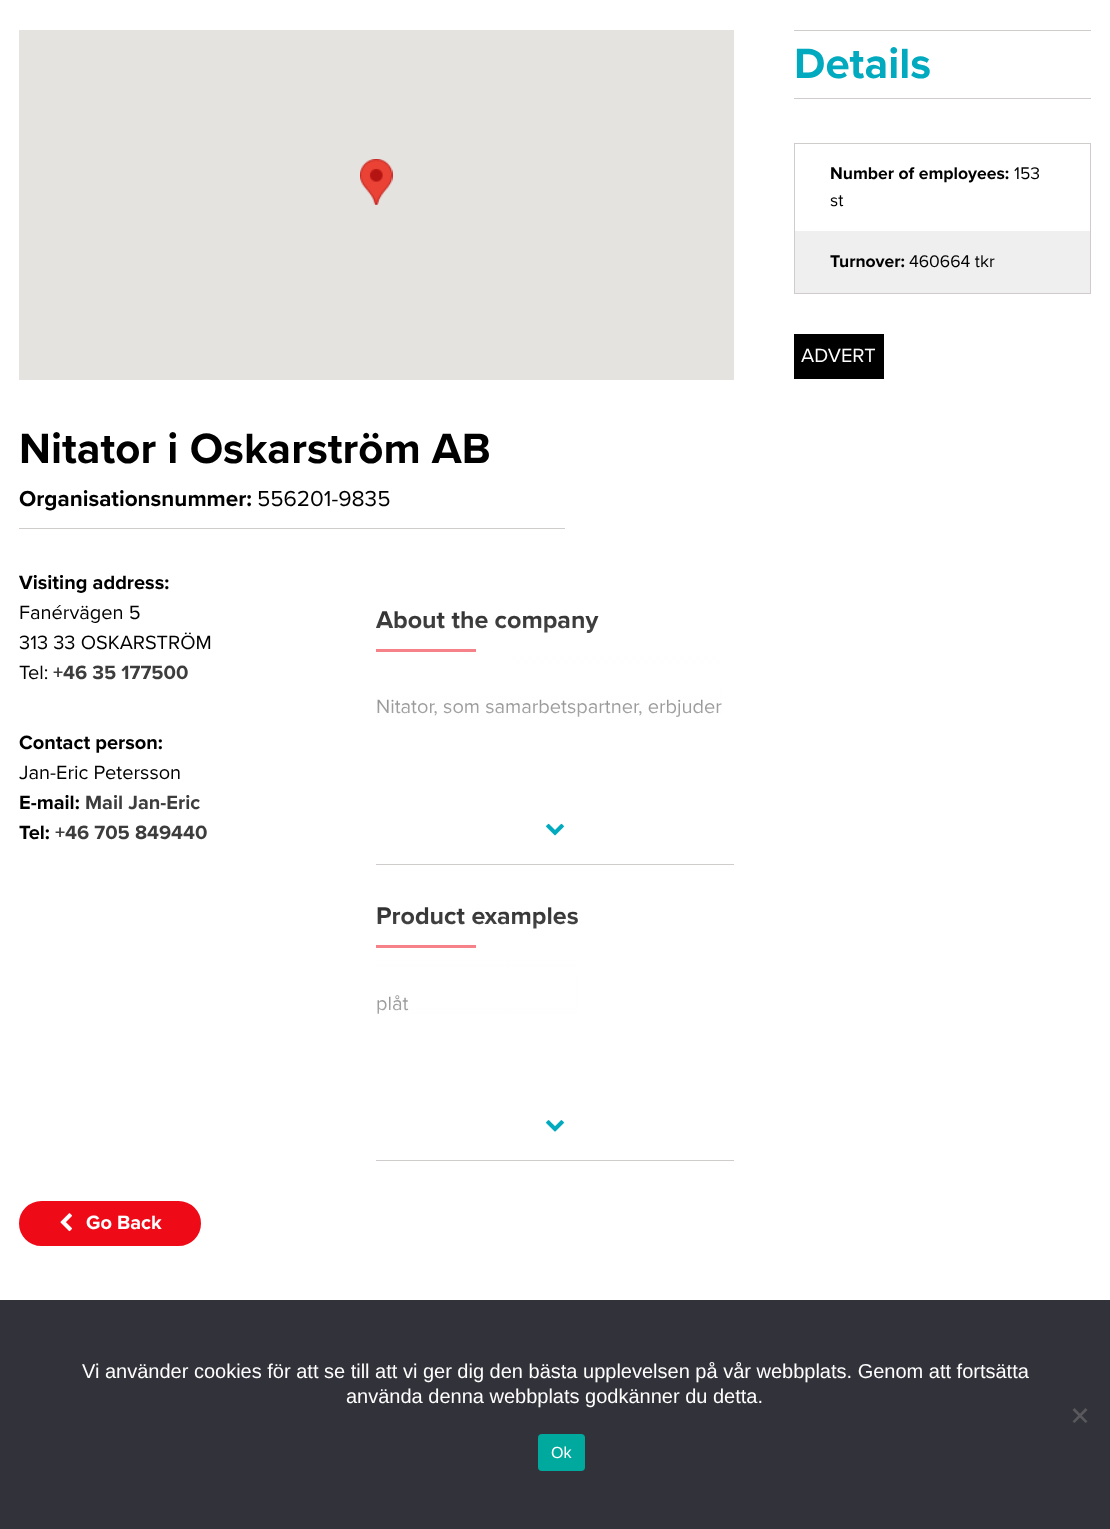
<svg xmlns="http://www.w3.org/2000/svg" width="1110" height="1529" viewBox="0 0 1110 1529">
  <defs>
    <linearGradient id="g1" gradientUnits="userSpaceOnUse" x1="555" y1="569" x2="555" y2="794"><stop offset="0" stop-color="rgb(254,254,254)" stop-opacity="0"/><stop offset="1" stop-color="rgb(254,254,254)"/></linearGradient>
    <linearGradient id="g2" gradientUnits="userSpaceOnUse" x1="555" y1="865" x2="555" y2="1090"><stop offset="0" stop-color="rgb(254,254,254)" stop-opacity="0"/><stop offset="1" stop-color="rgb(254,254,254)"/></linearGradient>
  </defs>
  <rect width="100%" height="100%" fill="rgb(255,255,255)"/>
  <rect x="794" y="30" width="297" height="1" fill="rgb(208,204,204)"/>
  <rect x="794" y="98" width="297" height="1" fill="rgb(208,204,204)"/>
  <text x="794" y="78" font-family="Proxima Nova" font-size="43.75" font-weight="bold" fill="rgb(1,170,190)">Details</text>
  <rect x="794.5" y="143.5" width="296" height="150" fill="none" stroke="rgb(208,204,204)"/>
  <text x="830" y="179" font-family="Proxima Nova" font-size="17.5" font-weight="bold" fill="rgb(0,0,0)">Number of employees:</text>
  <g font-family="Proxima Nova" font-size="17.5" fill="rgb(0,0,0)">
    <text x="1014" y="179">153</text>
    <text x="830" y="206">st</text>
  </g>
  <rect x="795" y="231" width="295" height="62" fill="rgb(239,239,239)"/>
  <text x="830" y="267" font-family="Proxima Nova" font-size="17.5" font-weight="bold" fill="rgb(0,0,0)">Turnover:</text>
  <text x="909" y="267" font-family="Proxima Nova" font-size="17.5" fill="rgb(0,0,0)">460664 tkr</text>
  <rect x="794" y="334" width="90" height="45" fill="rgb(0,0,0)"/>
  <text x="801" y="362" font-family="Proxima Nova" font-size="20" fill="rgb(254,254,254)">ADVERT</text>
  <rect x="19" y="30" width="715" height="350" fill="rgb(229,227,223)"/>
  <image x="360" y="159" width="33" height="46" href="pic1.png"/>
  <rect x="19" y="528" width="546" height="1" fill="rgb(208,204,204)"/>
  <text x="19" y="463" font-family="Proxima Nova" font-size="43.75" font-weight="bold" fill="rgb(0,0,0)">Nitator i Oskarström AB</text>
  <text x="19" y="506" font-family="Proxima Nova" font-size="22.5" font-weight="bold" fill="rgb(0,0,0)">Organisationsnummer:</text>
  <text x="257" y="506" font-family="Proxima Nova" font-size="22.5" fill="rgb(0,0,0)">556201-9835</text>
  <text x="19" y="589" font-family="Proxima Nova" font-size="20" font-weight="bold" fill="rgb(0,0,0)">Visiting address:</text>
  <g font-family="Proxima Nova" font-size="20" fill="rgb(0,0,0)">
    <text>
      <tspan x="19" y="619">Fanérvägen 5</tspan>
      <tspan x="19" y="649">313 33 OSKARSTRÖM</tspan>
      <tspan x="19" y="679">Tel:</tspan>
    </text>
  </g>
  <text x="53" y="679" font-family="Proxima Nova" font-size="20" font-weight="bold" fill="rgb(61,61,61)">+46 35 177500</text>
  <text x="19" y="749" font-family="Proxima Nova" font-size="20" font-weight="bold" fill="rgb(0,0,0)">Contact person:</text>
  <text x="19" y="779" font-family="Proxima Nova" font-size="20" fill="rgb(0,0,0)">Jan-Eric Petersson</text>
  <text x="19" y="809" font-family="Proxima Nova" font-size="20" font-weight="bold" fill="rgb(0,0,0)">E-mail:</text>
  <text x="85" y="809" font-family="Proxima Nova" font-size="20" font-weight="bold" fill="rgb(61,61,61)">Mail Jan-Eric</text>
  <text x="19" y="839" font-family="Proxima Nova" font-size="20" font-weight="bold" fill="rgb(0,0,0)">Tel:</text>
  <text x="55" y="839" font-family="Proxima Nova" font-size="20" font-weight="bold" fill="rgb(61,61,61)">+46 705 849440</text>
  <text x="376" y="628" font-family="Proxima Nova" font-size="25" font-weight="bold" fill="rgb(0,0,0)">About the company</text>
  <rect x="376" y="649" width="100" height="3" fill="rgb(242,58,70)"/>
  <text x="376" y="713" font-family="Proxima Nova" font-size="20" fill="rgb(0,0,0)">Nitator, som samarbetspartner, erbjuder</text>
  <rect x="376" y="611" width="346" height="106" fill="url(#g1)"/>
  <rect x="376" y="864" width="358" height="1" fill="rgb(208,204,204)"/>
  <image x="546" y="823" width="18" height="13" href="pic2.png"/>
  <text x="376" y="924" font-family="Proxima Nova" font-size="25" font-weight="bold" fill="rgb(0,0,0)">Product examples</text>
  <rect x="376" y="945" width="100" height="3" fill="rgb(242,58,70)"/>
  <text x="376" y="1010" font-family="Proxima Nova" font-size="20" fill="rgb(0,0,0)">plåt</text>
  <rect x="376" y="907" width="202" height="107" fill="url(#g2)"/>
  <rect x="376" y="1160" width="358" height="1" fill="rgb(208,204,204)"/>
  <image x="546" y="1120" width="18" height="12" href="pic3.png"/>
  <rect x="20.5" y="1202.5" width="179" height="42" rx="21" fill="rgb(239,10,24)" stroke="rgb(239,10,24)" stroke-width="3"/>
  <image x="60" y="1213" width="12" height="19" href="pic4.png"/>
  <text x="86" y="1229" font-family="Proxima Nova" font-size="20" font-weight="bold" fill="rgb(254,254,254)">Go Back</text>
  <rect x="0" y="1300" width="1110" height="229" fill="rgb(50,50,58)"/>
  <g font-family="Liberation Sans" font-size="20" fill="rgb(254,254,254)">
    <text x="82" y="1378">Vi använder cookies för att se till att vi ger dig den bästa upplevelsen på vår webbplats. Genom att fortsätta</text>
    <text x="346" y="1403">använda denna webbplats godkänner du detta.</text>
  </g>
  <path d="M1085.5 1408L1087.5 1410L1074.5 1423L1072.5 1421.5Z" fill="rgb(89,89,93)"/>
  <path d="M1072.5 1410L1074.5 1408L1087.5 1421.5L1085.5 1423Z" fill="rgb(89,89,93)"/>
  <rect x="538" y="1434" width="47" height="37" rx="4" fill="rgb(0,169,157)"/>
  <text x="551" y="1458" font-family="Liberation Sans" font-size="16" fill="rgb(254,254,254)">Ok</text>
</svg>
